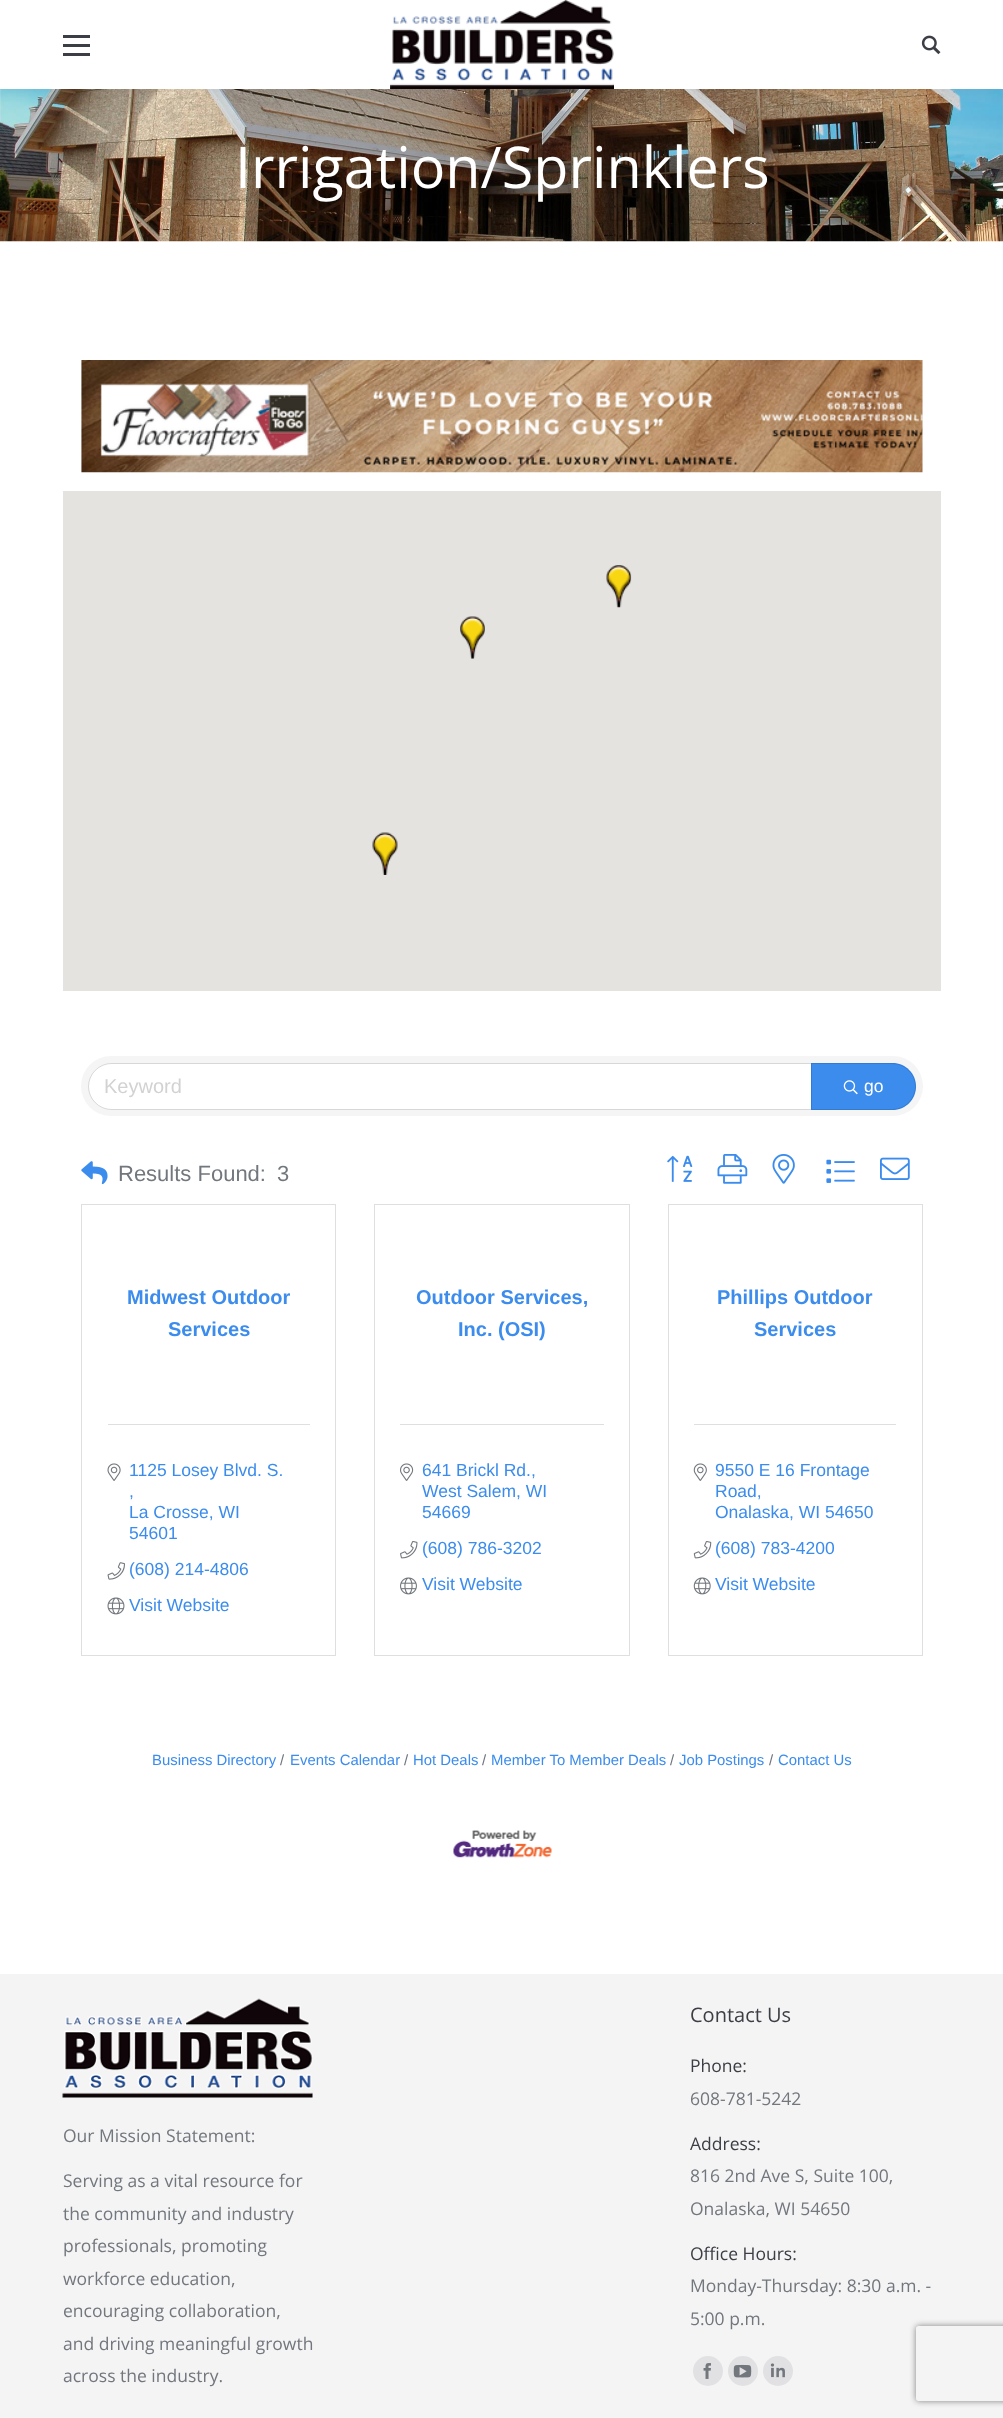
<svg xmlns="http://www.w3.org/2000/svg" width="1003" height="2418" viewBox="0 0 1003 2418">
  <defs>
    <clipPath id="clip1"><path d="M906 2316H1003V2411H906ZM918.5 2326H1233.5C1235 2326 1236 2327 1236 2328.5V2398.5C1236 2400 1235 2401 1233.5 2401H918.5C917 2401 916 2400 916 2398.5V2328.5C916 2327 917 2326 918.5 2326Z" clip-rule="evenodd"/></clipPath>
  </defs>
  <rect width="100%" height="100%" fill="rgb(255,255,255)"/>
  <image x="0" y="89" width="1003" height="153" href="pic3.png"/>
  <rect x="-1" y="-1" width="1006" height="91" fill="rgba(0,0,0,0.07)" filter="blur(9.5px)"/>
  <rect x="0" y="0" width="1003" height="89" fill="rgb(255,255,255)"/>
  <rect x="63" y="44" width="27" height="3" fill="rgb(60,62,69)"/>
  <rect x="63" y="35" width="27" height="3" fill="rgb(60,62,69)"/>
  <rect x="63" y="53" width="27" height="3" fill="rgb(60,62,69)"/>
  <image x="390" y="0" width="224" height="89" href="pic1.png"/>
  <image x="921" y="35" width="20" height="20" href="pic2.png"/>
  <text x="235" y="188" font-family="Open Sans" font-size="57.5" fill="rgb(255,255,255)">Irrigation/Sprinklers</text>
  <image x="81" y="360" width="842" height="113" href="pic4.png"/>
  <rect x="63" y="491" width="878" height="500" fill="rgb(229,227,223)"/>
  <image x="606" y="565" width="26" height="43" href="pic5.png"/>
  <image x="460" y="616" width="25" height="43" href="pic6.png"/>
  <image x="372" y="832" width="26" height="43" href="pic7.png"/>
  <rect x="81" y="1056" width="842" height="60" rx="30" fill="rgb(245,245,245)"/>
  <path d="M111.5 1064H811V1109H111.5C99 1109 89 1099 89 1086.5C89 1074 99 1064 111.5 1064Z" fill="rgb(255,255,255)"/>
  <path d="M111.5 1063.5H812.5V1109.5H111.5C99 1109.5 88.5 1099 88.5 1086.5C88.5 1074 99 1063.5 111.5 1063.5Z" fill="none" stroke="rgba(0,0,0,0.12)"/>
  <text x="104" y="1093" font-family="Liberation Sans" font-size="20" fill="rgb(210,210,210)">Keyword</text>
  <path d="M811 1063H892.5C905.5 1063 916 1073.5 916 1086.5C916 1099.5 905.5 1110 892.5 1110H811Z" fill="rgb(59,140,237)"/>
  <path d="M811.5 1063.5H892.5C905 1063.5 915.5 1074 915.5 1086.5C915.5 1099 905 1109.5 892.5 1109.5H811.5Z" fill="none" stroke="rgba(0,0,0,0.12)"/>
  <image x="843" y="1080" width="15" height="15" href="pic8.png"/>
  <text x="864" y="1092" font-family="Liberation Sans" font-size="17.5" fill="rgb(255,255,255)">go</text>
  <image x="81" y="1161" width="27" height="24" href="pic9.png"/>
  <g font-family="Liberation Sans" font-size="22" fill="rgb(114,119,125)">
    <text x="118" y="1181">Results Found:</text>
    <text x="277" y="1181">3</text>
  </g>
  <image x="667" y="1155" width="26" height="27" href="pic10.png"/>
  <image x="717" y="1154" width="31" height="30" href="pic11.png"/>
  <image x="772" y="1154" width="23" height="30" href="pic12.png"/>
  <image x="826" y="1159" width="29" height="24" href="pic13.png"/>
  <image x="880" y="1157" width="30" height="23" href="pic14.png"/>
  <rect x="81.5" y="1204.5" width="254" height="451" fill="none" stroke="rgb(223,223,223)"/>
  <g font-family="Liberation Sans" font-size="20" font-weight="bold" fill="rgb(59,140,237)">
    <text x="127" y="1304">Midwest Outdoor</text>
    <text x="168" y="1336">Services</text>
  </g>
  <rect x="108" y="1424" width="202" height="1" fill="rgb(223,223,223)"/>
  <image x="107" y="1463" width="14" height="18" href="pic15.png"/>
  <g font-family="Liberation Sans" font-size="17.5" fill="rgb(59,140,237)">
    <text>
      <tspan x="129" y="1476">1125 Losey Blvd. S.</tspan>
      <tspan x="129" y="1497">,</tspan>
      <tspan x="129" y="1518">La Crosse, WI</tspan>
      <tspan x="129" y="1539">54601</tspan>
    </text>
  </g>
  <image x="107" y="1562" width="18" height="18" href="pic16.png"/>
  <text x="129" y="1575" font-family="Liberation Sans" font-size="17.5" fill="rgb(59,140,237)">(608) 214-4806</text>
  <image x="107" y="1597" width="18" height="18" href="pic17.png"/>
  <text x="129" y="1611" font-family="Liberation Sans" font-size="17.5" fill="rgb(59,140,237)">Visit Website</text>
  <rect x="374.5" y="1204.5" width="255" height="451" fill="none" stroke="rgb(223,223,223)"/>
  <g font-family="Liberation Sans" font-size="20" font-weight="bold" fill="rgb(59,140,237)">
    <text x="416" y="1304">Outdoor Services,</text>
    <text x="458" y="1336">Inc. (OSI)</text>
  </g>
  <rect x="400" y="1424" width="204" height="1" fill="rgb(223,223,223)"/>
  <image x="400" y="1463" width="14" height="18" href="pic18.png"/>
  <g font-family="Liberation Sans" font-size="17.5" fill="rgb(59,140,237)">
    <text>
      <tspan x="422" y="1476">641 Brickl Rd.,</tspan>
      <tspan x="422" y="1497">West Salem, WI</tspan>
      <tspan x="422" y="1518">54669</tspan>
    </text>
  </g>
  <image x="400" y="1541" width="18" height="18" href="pic19.png"/>
  <text x="422" y="1554" font-family="Liberation Sans" font-size="17.5" fill="rgb(59,140,237)">(608) 786-3202</text>
  <image x="400" y="1577" width="17" height="18" href="pic20.png"/>
  <text x="422" y="1590" font-family="Liberation Sans" font-size="17.5" fill="rgb(59,140,237)">Visit Website</text>
  <rect x="668.5" y="1204.5" width="254" height="451" fill="none" stroke="rgb(223,223,223)"/>
  <g font-family="Liberation Sans" font-size="20" font-weight="bold" fill="rgb(59,140,237)">
    <text x="717" y="1304">Phillips Outdoor</text>
    <text x="754" y="1336">Services</text>
  </g>
  <rect x="694" y="1424" width="202" height="1" fill="rgb(223,223,223)"/>
  <image x="693" y="1463" width="14" height="18" href="pic21.png"/>
  <g font-family="Liberation Sans" font-size="17.5" fill="rgb(59,140,237)">
    <text>
      <tspan x="715" y="1476">9550 E 16 Frontage</tspan>
      <tspan x="715" y="1497">Road,</tspan>
      <tspan x="715" y="1518">Onalaska, WI 54650</tspan>
    </text>
  </g>
  <image x="693" y="1541" width="19" height="18" href="pic22.png"/>
  <text x="715" y="1554" font-family="Liberation Sans" font-size="17.5" fill="rgb(59,140,237)">(608) 783-4200</text>
  <image x="693" y="1577" width="18" height="18" href="pic23.png"/>
  <text x="715" y="1590" font-family="Liberation Sans" font-size="17.5" fill="rgb(59,140,237)">Visit Website</text>
  <text x="152" y="1765" font-family="Liberation Sans" font-size="14.9" fill="rgb(59,140,237)">Business Directory</text>
  <text x="280" y="1765" font-family="Liberation Sans" font-size="14.9" fill="rgb(108,117,125)">/</text>
  <text x="290" y="1765" font-family="Liberation Sans" font-size="14.9" fill="rgb(59,140,237)">Events Calendar</text>
  <text x="404" y="1765" font-family="Liberation Sans" font-size="14.9" fill="rgb(108,117,125)">/</text>
  <text x="413" y="1765" font-family="Liberation Sans" font-size="14.9" fill="rgb(59,140,237)">Hot Deals</text>
  <text x="482" y="1765" font-family="Liberation Sans" font-size="14.9" fill="rgb(108,117,125)">/</text>
  <text x="491" y="1765" font-family="Liberation Sans" font-size="14.9" fill="rgb(59,140,237)">Member To Member Deals</text>
  <text x="670" y="1765" font-family="Liberation Sans" font-size="14.9" fill="rgb(108,117,125)">/</text>
  <text x="679" y="1765" font-family="Liberation Sans" font-size="14.9" fill="rgb(59,140,237)">Job Postings</text>
  <text x="769" y="1765" font-family="Liberation Sans" font-size="14.9" fill="rgb(108,117,125)">/</text>
  <text x="778" y="1765" font-family="Liberation Sans" font-size="14.9" fill="rgb(59,140,237)">Contact Us</text>
  <image x="453" y="1830" width="99" height="28" href="pic24.png"/>
  <rect x="0" y="1974" width="1003" height="444" fill="rgb(244,244,245)"/>
  <image x="62" y="1998" width="251" height="100" href="pic25.png"/>
  <g font-family="Open Sans" font-size="17.5" fill="rgb(114,119,125)">
    <text x="63" y="2142">Our Mission Statement:</text>
    <text>
      <tspan x="63" y="2187">Serving as a vital resource for</tspan>
      <tspan x="63" y="2220">the community and industry</tspan>
      <tspan x="63" y="2252">professionals, promoting</tspan>
      <tspan x="63" y="2285">workforce education,</tspan>
      <tspan x="63" y="2317">encouraging collaboration,</tspan>
      <tspan x="63" y="2350">and driving meaningful growth</tspan>
      <tspan x="63" y="2382">across the industry.</tspan>
    </text>
  </g>
  <text x="690" y="2022" font-family="Open Sans" font-size="20" fill="rgb(60,62,69)">Contact Us</text>
  <text x="690" y="2072" font-family="Open Sans" font-size="17.5" fill="rgb(60,62,69)">Phone:</text>
  <text x="690" y="2105" font-family="Open Sans" font-size="17.5" fill="rgb(114,119,125)">608-781-5242</text>
  <text x="690" y="2150" font-family="Open Sans" font-size="17.5" fill="rgb(60,62,69)">Address:</text>
  <g font-family="Open Sans" font-size="17.5" fill="rgb(114,119,125)">
    <text>
      <tspan x="690" y="2182">816 2nd Ave S, Suite 100,</tspan>
      <tspan x="690" y="2215">Onalaska, WI 54650</tspan>
    </text>
  </g>
  <text x="690" y="2260" font-family="Open Sans" font-size="17.5" fill="rgb(60,62,69)">Office Hours:</text>
  <g font-family="Open Sans" font-size="17.5" fill="rgb(114,119,125)">
    <text>
      <tspan x="690" y="2292">Monday-Thursday: 8:30 a.m. -</tspan>
      <tspan x="690" y="2325">5:00 p.m.</tspan>
    </text>
  </g>
  <circle cx="708" cy="2371" r="15" fill="rgb(225,225,227)"/>
  <image x="703" y="2363" width="8" height="16" href="pic26.png"/>
  <circle cx="743" cy="2371" r="15" fill="rgb(225,225,227)"/>
  <image x="733" y="2364" width="19" height="14" href="pic27.png"/>
  <circle cx="778" cy="2371" r="15" fill="rgb(225,225,227)"/>
  <image x="770" y="2363" width="15" height="15" href="pic28.png"/>
  <g clip-path="url(#clip1)">
    <rect x="916" y="2326" width="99" height="75" rx="2.5" fill="rgb(128,128,128)" filter="blur(3px)"/>
  </g>
</svg>
